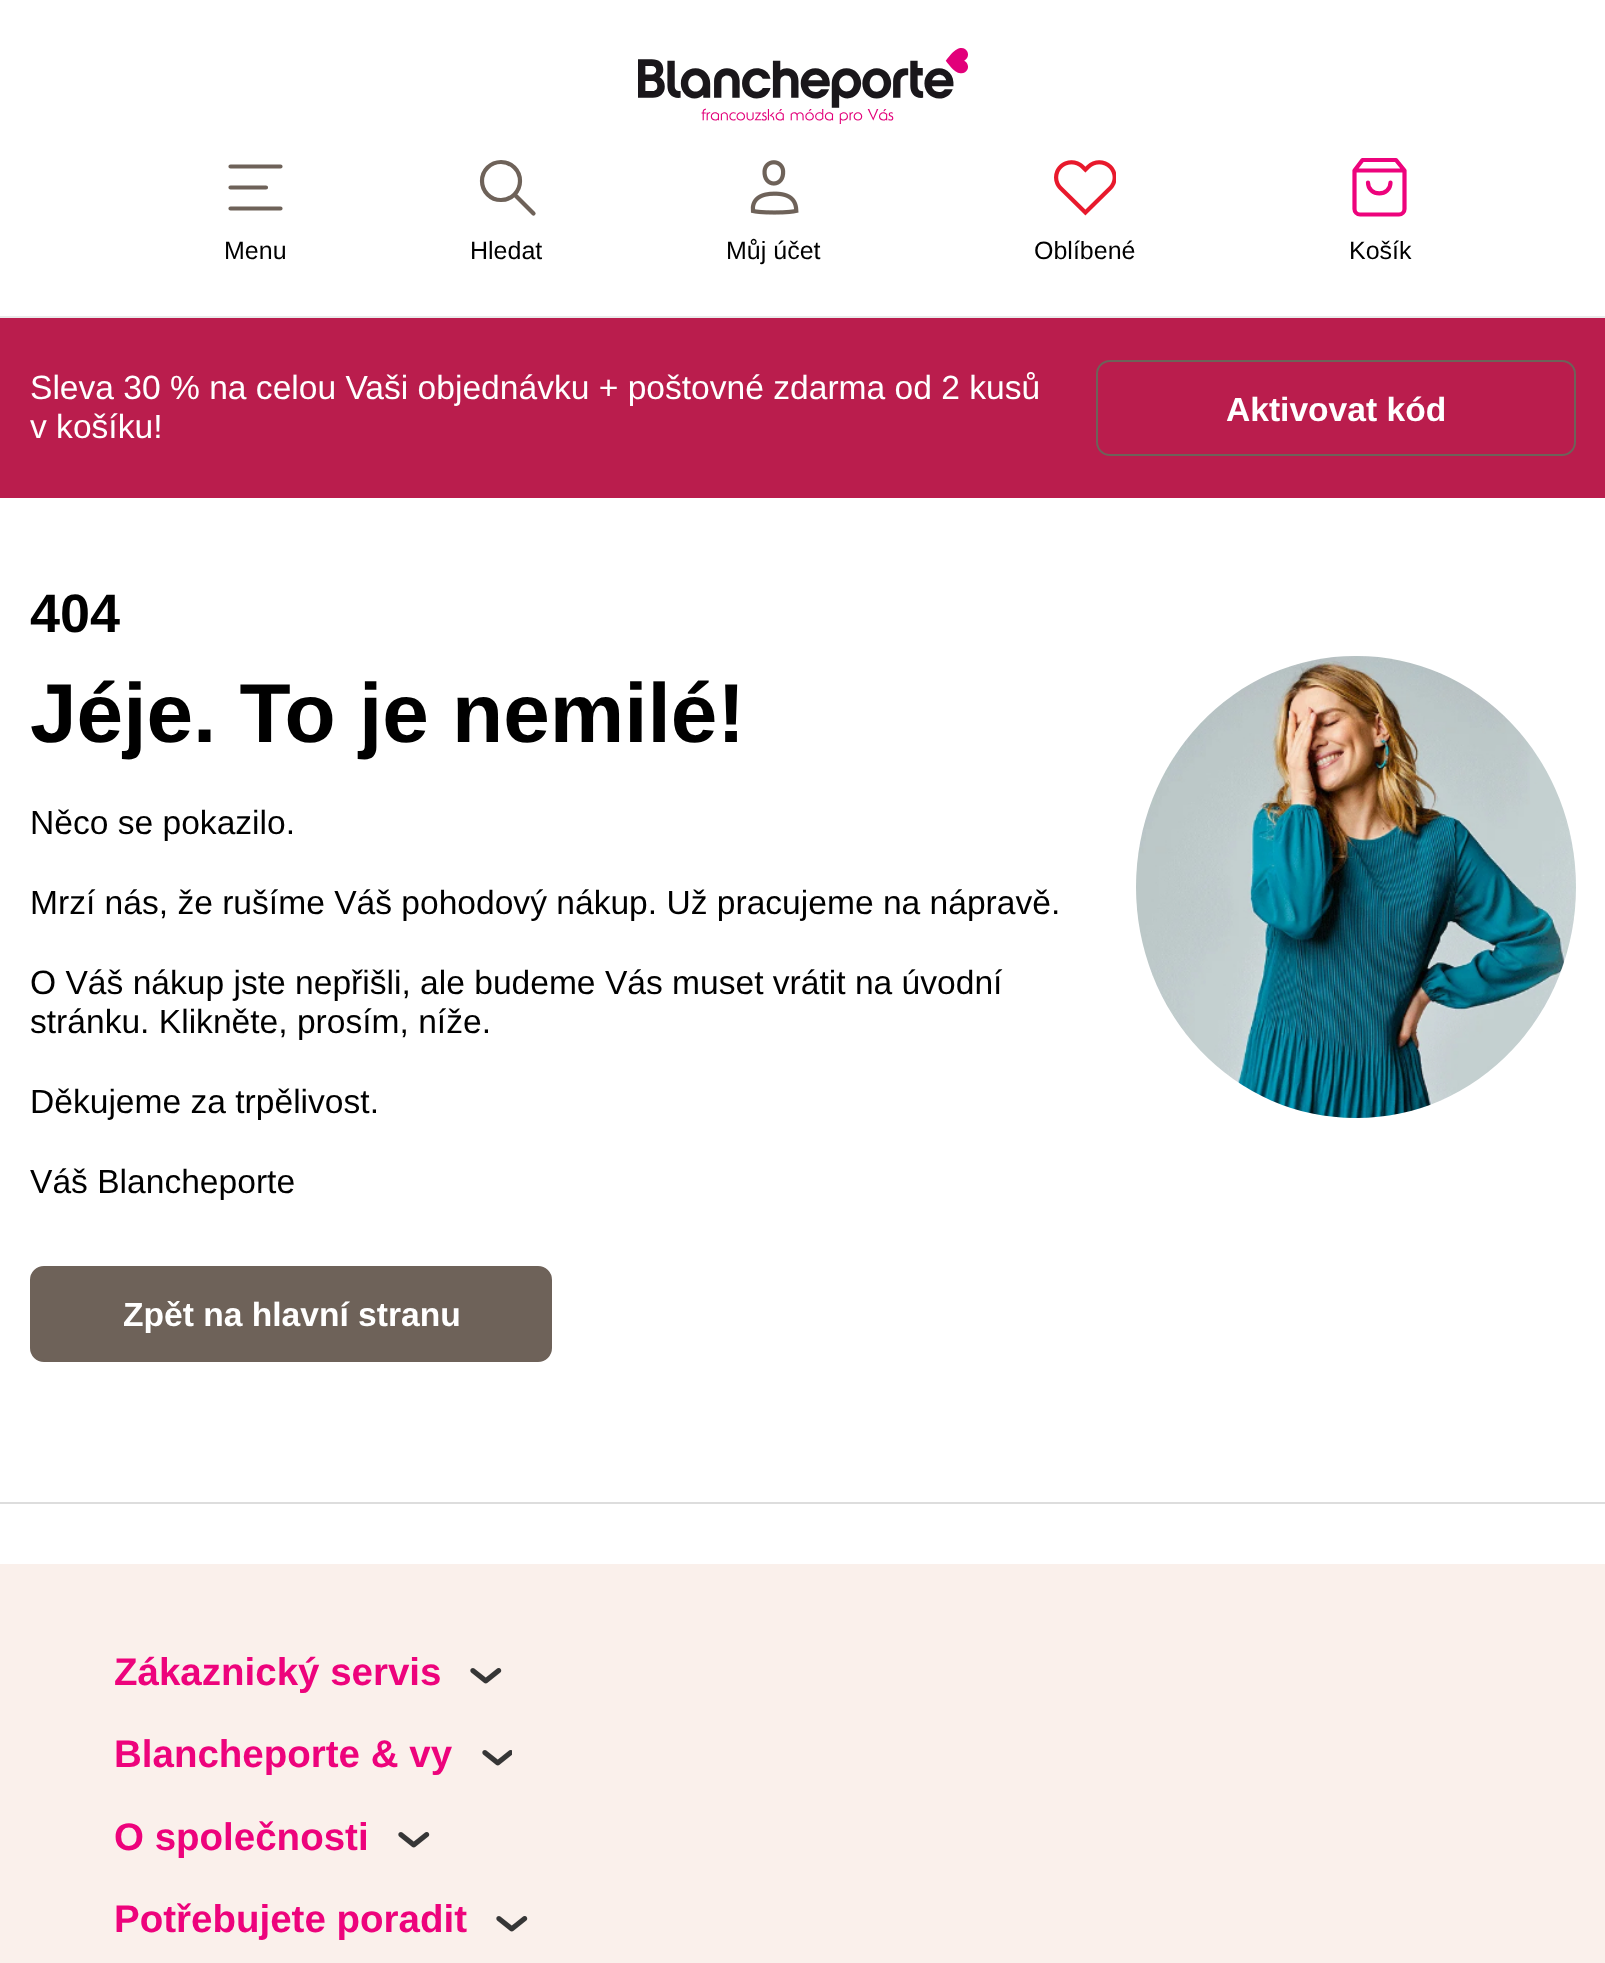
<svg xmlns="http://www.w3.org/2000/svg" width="1605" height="1963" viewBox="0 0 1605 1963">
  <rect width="100%" height="100%" fill="rgb(255,255,255)"/>
  <rect x="0" y="316" width="1605" height="2" fill="rgb(234,234,234)"/>
  <image x="638" y="48" width="330" height="76" href="pic1.png"/>
  <path d="M230.5 187.5H266M230.5 166.5H280.5M230.5 208.5H280.5" fill="none" stroke="rgb(110,98,89)" stroke-width="4.2" stroke-linecap="round"/>
  <text x="224" y="259" font-family="Liberation Sans" font-size="25" fill="rgb(0,0,0)">Menu</text>
  <circle cx="501" cy="181" r="19" fill="none" stroke="rgb(110,98,89)" stroke-width="4.2"/>
  <path d="M516 196L533.5 213.5" fill="none" stroke="rgb(110,98,89)" stroke-width="4.2" stroke-linecap="round"/>
  <text x="470" y="259" font-family="Liberation Sans" font-size="25" fill="rgb(0,0,0)">Hledat</text>
  <image x="750" y="160" width="49" height="55" href="pic2.png"/>
  <text x="726" y="259" font-family="Liberation Sans" font-size="25" fill="rgb(0,0,0)">Můj účet</text>
  <image x="1054" y="160" width="62" height="56" href="pic3.png"/>
  <text x="1034" y="259" font-family="Liberation Sans" font-size="25" fill="rgb(0,0,0)">Oblíbené</text>
  <path d="M1354.5 170.5V209C1354.5 212 1357 214.5 1360 214.5H1399C1402 214.5 1404.5 212 1404.5 209V170.5ZM1404.5 170.5L1396 160H1362.5L1354.5 170.5M1390.5 182.5C1390.5 197 1368 197 1368 182.5" fill="none" stroke="rgb(237,3,124)" stroke-width="4.2" stroke-linecap="round" stroke-linejoin="round"/>
  <text x="1349" y="259" font-family="Liberation Sans" font-size="25" fill="rgb(0,0,0)">Košík</text>
  <rect x="0" y="318" width="1605" height="180" fill="rgb(186,29,77)"/>
  <g font-family="Liberation Sans" font-size="33.6" fill="rgb(255,255,255)">
    <text>
      <tspan x="30" y="399">Sleva 30 % na celou Vaši objednávku + poštovné zdarma od 2 kusů</tspan>
      <tspan x="30" y="438">v košíku!</tspan>
    </text>
  </g>
  <rect x="1097" y="361" width="478" height="94" rx="13" fill="none" stroke="rgb(110,98,89)" stroke-width="2"/>
  <text x="1226" y="421" font-family="Liberation Sans" font-size="33.6" font-weight="bold" fill="rgb(255,255,255)">Aktivovat kód</text>
  <text x="30" y="632" font-family="Liberation Sans" font-size="54" font-weight="bold" fill="rgb(0,0,0)">404</text>
  <text x="30" y="742" font-family="Liberation Sans" font-size="83.75" font-weight="bold" fill="rgb(0,0,0)">Jéje. To je nemilé!</text>
  <g font-family="Liberation Sans" font-size="33.6" fill="rgb(0,0,0)">
    <text x="30" y="834">Něco se pokazilo.</text>
    <text x="30" y="914">Mrzí nás, že rušíme Váš pohodový nákup. Už pracujeme na nápravě.</text>
    <text>
      <tspan x="30" y="994">O Váš nákup jste nepřišli, ale budeme Vás muset vrátit na úvodní</tspan>
      <tspan x="30" y="1033">stránku. Klikněte, prosím, níže.</tspan>
    </text>
    <text x="30" y="1113">Děkujeme za trpělivost.</text>
    <text x="30" y="1193">Váš Blancheporte</text>
  </g>
  <rect x="31" y="1267" width="520" height="94" rx="13" fill="rgb(110,98,89)" stroke="rgb(110,98,89)" stroke-width="2"/>
  <text x="123" y="1326" font-family="Liberation Sans" font-size="33.6" font-weight="bold" fill="rgb(255,255,255)">Zpět na hlavní stranu</text>
  <image x="1136" y="656" width="440" height="462" href="pic4.png"/>
  <rect x="0" y="1502" width="1605" height="2" fill="rgb(221,221,221)"/>
  <rect x="0" y="1564" width="1605" height="399" fill="rgb(250,240,235)"/>
  <text x="114" y="1685" font-family="Liberation Sans" font-size="38.5" font-weight="bold" fill="rgb(237,3,124)">Zákaznický servis</text>
  <image x="470" y="1668" width="32" height="16" href="pic5.png"/>
  <text x="114" y="1767" font-family="Liberation Sans" font-size="38.5" font-weight="bold" fill="rgb(237,3,124)">Blancheporte &amp; vy</text>
  <image x="482" y="1750" width="30" height="16" href="pic6.png"/>
  <text x="114" y="1850" font-family="Liberation Sans" font-size="38.5" font-weight="bold" fill="rgb(237,3,124)">O společnosti</text>
  <image x="398" y="1832" width="32" height="16" href="pic5.png"/>
  <text x="114" y="1932" font-family="Liberation Sans" font-size="38.5" font-weight="bold" fill="rgb(237,3,124)">Potřebujete poradit</text>
  <image x="496" y="1916" width="32" height="16" href="pic5.png"/>
</svg>
